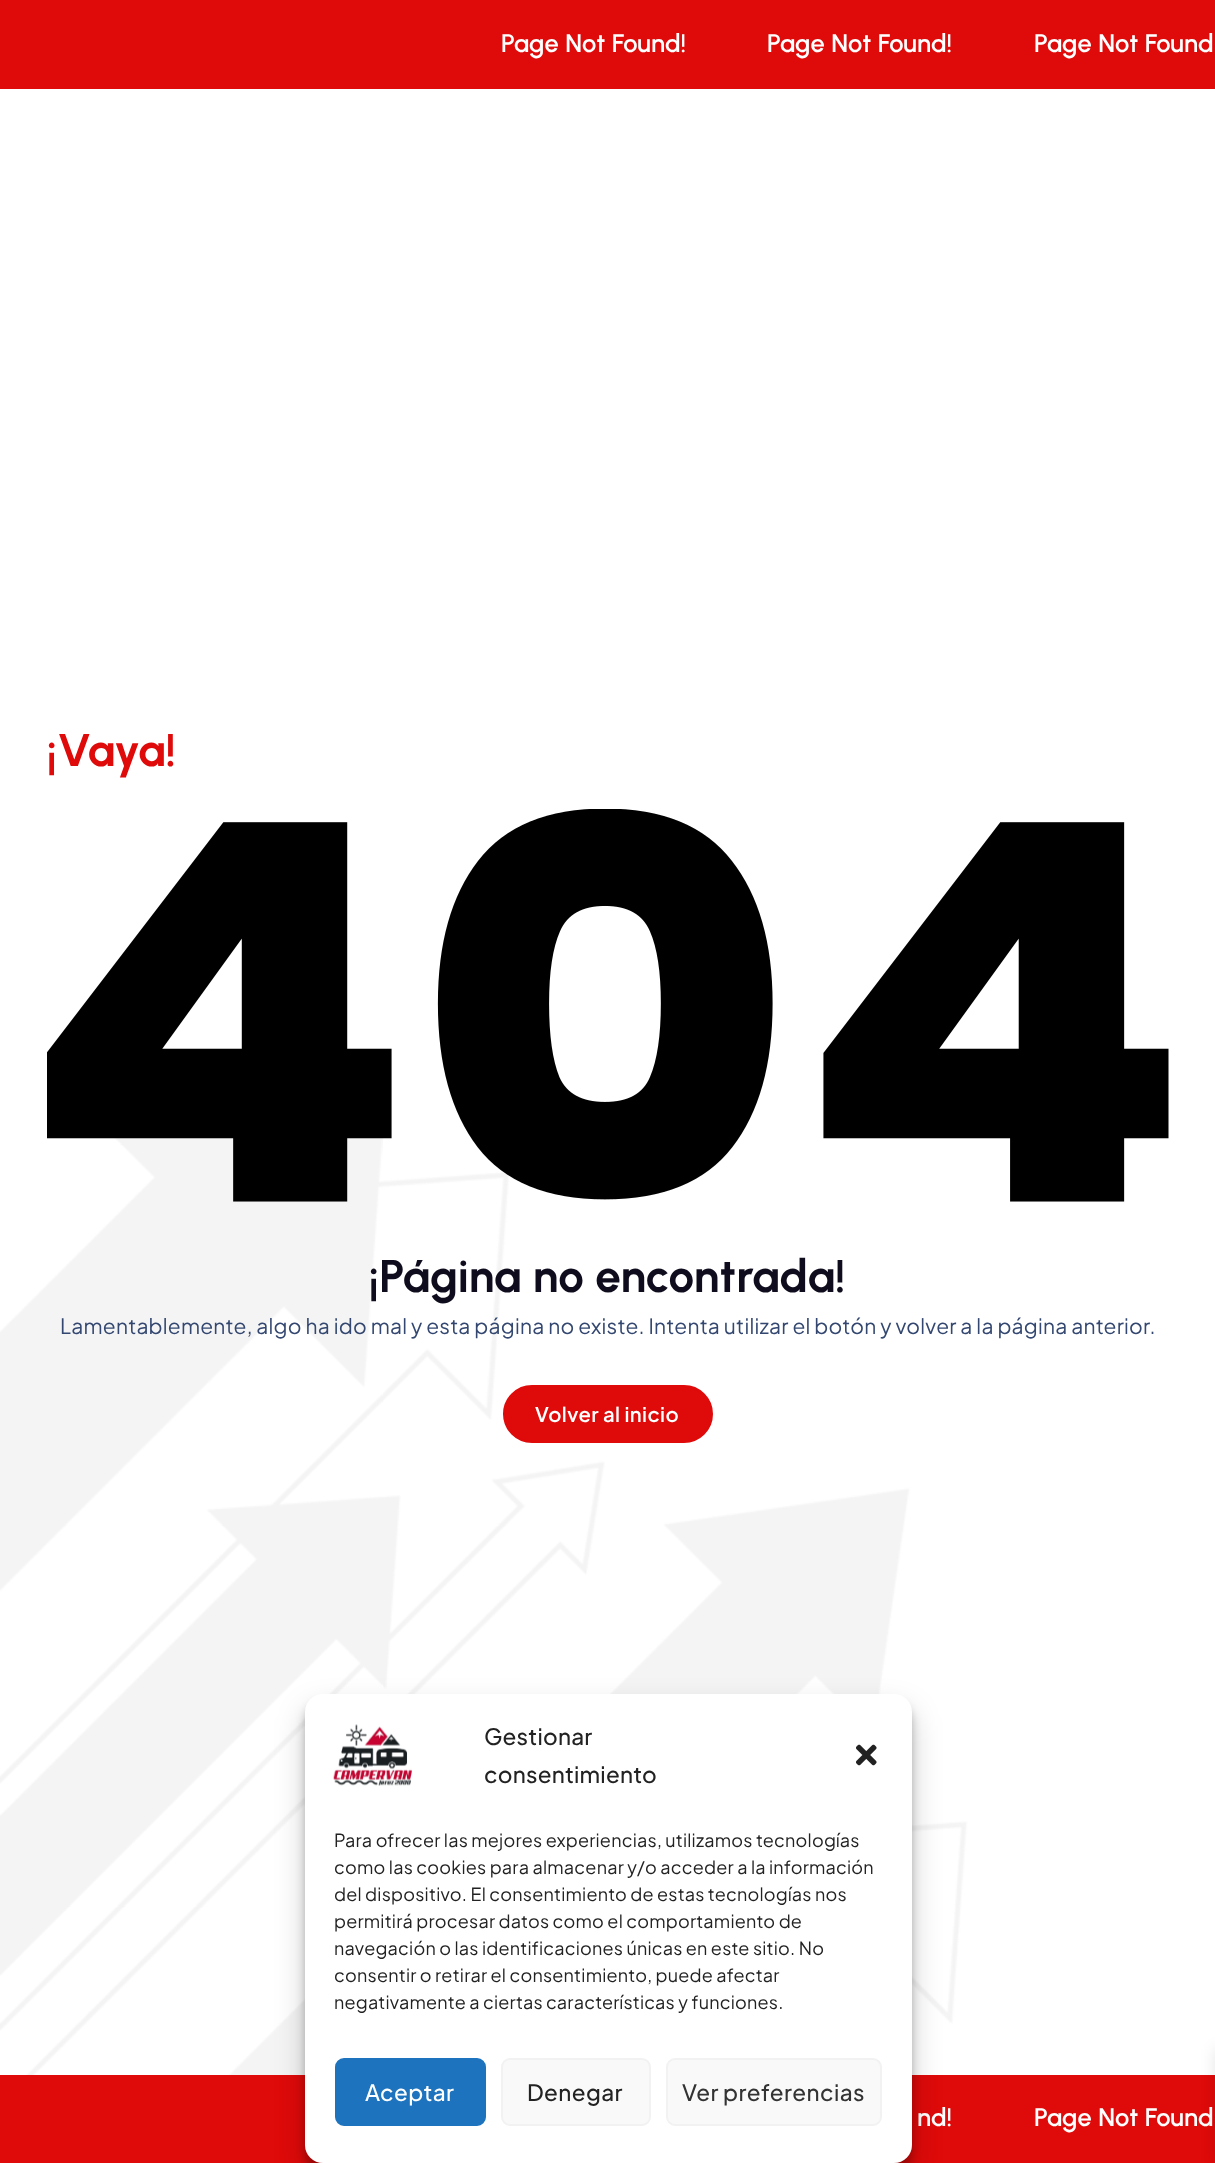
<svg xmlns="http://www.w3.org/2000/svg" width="1215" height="2163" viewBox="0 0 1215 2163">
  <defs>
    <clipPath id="clip1"><rect x="335" y="1827" width="547" height="197"/></clipPath>
  </defs>
  <rect width="100%" height="100%" fill="rgb(255,255,255)"/>
  <rect x="0" y="0" width="1215" height="89" fill="rgb(223,10,10)"/>
  <g font-family="Urbanist" font-size="25.5" font-weight="600" letter-spacing="0.21" fill="rgb(255,255,255)">
    <text x="501" y="52">Page Not Found!</text>
    <text x="767" y="52">Page Not Found!</text>
    <text x="1034" y="52">Page Not Found</text>
  </g>
  <rect x="0" y="2075" width="1215" height="88" fill="rgb(223,10,10)"/>
  <g font-family="Urbanist" font-size="25.5" font-weight="600" letter-spacing="0.21" fill="rgb(255,255,255)">
    <text x="917" y="2126">nd!</text>
    <text x="1034" y="2126">Page Not Found</text>
  </g>
  <text x="47" y="766" font-family="Urbanist" font-size="45.75" font-weight="bold" letter-spacing="0.21" fill="rgb(223,10,10)">¡Vaya!</text>
  <image x="0" y="1138" width="968" height="937" href="pic2.png"/>
  <image x="47" y="809" width="1122" height="393" href="pic1.png"/>
  <text x="369" y="1292" font-family="Urbanist" font-size="45.75" font-weight="bold" letter-spacing="0.21" fill="rgb(15,13,29)">¡Página no encontrada!</text>
  <text x="60" y="1334" font-family="Plus Jakarta Sans" font-size="21" letter-spacing="0.21" fill="rgb(51,71,112)">Lamentablemente, algo ha ido mal y esta página no existe. Intenta utilizar el botón y volver a la página anterior.</text>
  <rect x="504" y="1386" width="208" height="56" rx="28" fill="rgb(223,10,10)" stroke="rgb(223,10,10)" stroke-width="2"/>
  <text x="535" y="1422" font-family="Plus Jakarta Sans" font-size="20.25" font-weight="600" letter-spacing="0.4" fill="rgb(255,255,255)">Volver al inicio</text>
  <rect x="305" y="1703" width="607" height="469" rx="18" fill="rgba(0,0,0,0.23)" filter="blur(4.5px)"/>
  <rect x="305" y="1709" width="607" height="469" rx="18" fill="rgba(0,0,0,0.19)" filter="blur(15px)"/>
  <rect x="305" y="1694" width="607" height="469" rx="18" fill="rgb(255,255,255)"/>
  <image x="333" y="1724" width="79" height="62" href="pic3.png"/>
  <g font-family="Plus Jakarta Sans" font-size="22.5" font-weight="500" letter-spacing="0.21" fill="rgb(34,34,34)">
    <text>
      <tspan x="484" y="1745">Gestionar</tspan>
      <tspan x="484" y="1783">consentimiento</tspan>
    </text>
  </g>
  <image x="856" y="1744" width="21" height="22" href="pic4.png"/>
  <text x="334" y="1847" font-family="Plus Jakarta Sans" font-size="18" letter-spacing="0.21" fill="rgb(34,34,34)">Para ofrecer las mejores experiencias, utilizamos tecnologías</text>
  <g clip-path="url(#clip1)">
    <g font-family="Plus Jakarta Sans" font-size="18" letter-spacing="0.21" fill="rgb(34,34,34)">
      <text>
        <tspan x="334" y="1874">como las cookies para almacenar y/o acceder a la información</tspan>
        <tspan x="334" y="1901">del dispositivo. El consentimiento de estas tecnologías nos</tspan>
      </text>
    </g>
  </g>
  <g font-family="Plus Jakarta Sans" font-size="18" letter-spacing="0.21" fill="rgb(34,34,34)">
    <text>
      <tspan x="334" y="1928">permitirá procesar datos como el comportamiento de</tspan>
      <tspan x="334" y="1955">navegación o las identificaciones únicas en este sitio. No</tspan>
    </text>
  </g>
  <g clip-path="url(#clip1)">
    <text x="334" y="1982" font-family="Plus Jakarta Sans" font-size="18" letter-spacing="0.21" fill="rgb(34,34,34)">consentir o retirar el consentimiento, puede afectar</text>
  </g>
  <text x="334" y="2009" font-family="Plus Jakarta Sans" font-size="18" letter-spacing="0.21" fill="rgb(34,34,34)">negativamente a ciertas características y funciones.</text>
  <rect x="336" y="2059" width="149" height="66" rx="8" fill="rgb(30,115,190)" stroke="rgb(30,115,190)" stroke-width="2"/>
  <text x="365" y="2101" font-family="Plus Jakarta Sans" font-size="22.5" font-weight="500" letter-spacing="0.4" fill="rgb(255,255,255)">Aceptar</text>
  <rect x="502" y="2059" width="148" height="66" rx="8" fill="rgb(249,249,249)" stroke="rgb(242,242,242)" stroke-width="2"/>
  <text x="527" y="2101" font-family="Plus Jakarta Sans" font-size="22.5" font-weight="500" letter-spacing="0.4" fill="rgb(34,34,34)">Denegar</text>
  <rect x="667" y="2059" width="214" height="66" rx="8" fill="rgb(249,249,249)" stroke="rgb(242,242,242)" stroke-width="2"/>
  <text x="682" y="2101" font-family="Plus Jakarta Sans" font-size="22.5" font-weight="500" letter-spacing="0.4" fill="rgb(51,51,51)">Ver preferencias</text>
  <rect x="1215" y="2049" width="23" height="113" fill="rgba(0,0,0,0.1)" filter="blur(7.5px)"/>
</svg>
